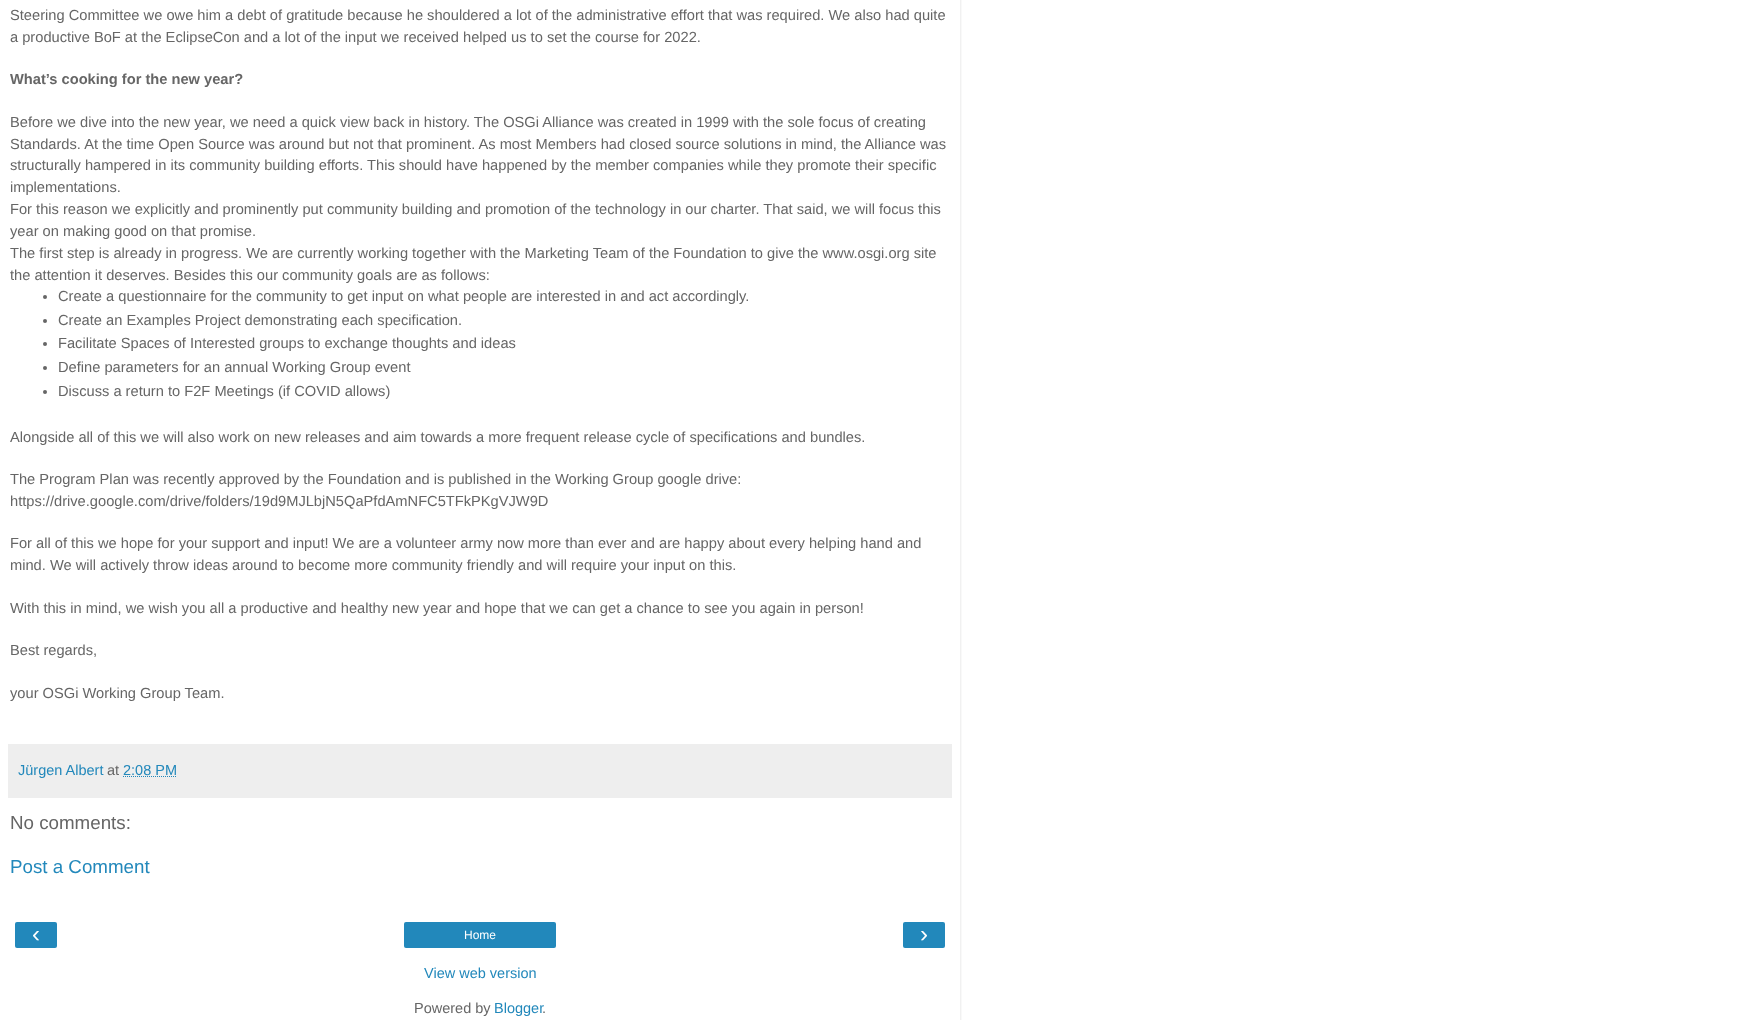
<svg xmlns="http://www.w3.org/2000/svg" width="1756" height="1020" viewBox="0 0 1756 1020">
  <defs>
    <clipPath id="clip1"><rect x="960" y="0" width="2" height="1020"/></clipPath>
  </defs>
  <rect width="100%" height="100%" fill="rgb(255,255,255)"/>
  <g clip-path="url(#clip1)">
    <rect x="0" y="-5" width="960" height="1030" fill="rgba(0,0,0,0.15)" filter="blur(1.5px)"/>
  </g>
  <g font-family="Liberation Sans" font-size="14.67" fill="rgb(102,102,102)">
    <text>
      <tspan x="10" y="20">Steering Committee we owe him a debt of gratitude because he shouldered a lot of the administrative effort that was required. We also had quite</tspan>
      <tspan x="10" y="42">a productive BoF at the EclipseCon and a lot of the input we received helped us to set the course for 2022.</tspan>
    </text>
  </g>
  <text x="10" y="84" font-family="Liberation Sans" font-size="14.67" font-weight="bold" fill="rgb(102,102,102)">What’s cooking for the new year?</text>
  <g font-family="Liberation Sans" font-size="14.67" fill="rgb(102,102,102)">
    <text>
      <tspan x="10" y="127">Before we dive into the new year, we need a quick view back in history. The OSGi Alliance was created in 1999 with the sole focus of creating</tspan>
      <tspan x="10" y="149">Standards. At the time Open Source was around but not that prominent. As most Members had closed source solutions in mind, the Alliance was</tspan>
      <tspan x="10" y="170">structurally hampered in its community building efforts. This should have happened by the member companies while they promote their specific</tspan>
      <tspan x="10" y="192">implementations.</tspan>
      <tspan x="10" y="214">For this reason we explicitly and prominently put community building and promotion of the technology in our charter. That said, we will focus this</tspan>
      <tspan x="10" y="236">year on making good on that promise.</tspan>
      <tspan x="10" y="258">The first step is already in progress. We are currently working together with the Marketing Team of the Foundation to give the www.osgi.org site</tspan>
      <tspan x="10" y="280">the attention it deserves. Besides this our community goals are as follows:</tspan>
    </text>
  </g>
  <circle cx="45" cy="297" r="2" fill="rgb(102,102,102)"/>
  <text x="58" y="301" font-family="Liberation Sans" font-size="14.67" fill="rgb(102,102,102)">Create a questionnaire for the community to get input on what people are interested in and act accordingly.</text>
  <circle cx="45" cy="321" r="2" fill="rgb(102,102,102)"/>
  <text x="58" y="325" font-family="Liberation Sans" font-size="14.67" fill="rgb(102,102,102)">Create an Examples Project demonstrating each specification.</text>
  <circle cx="45" cy="344" r="2" fill="rgb(102,102,102)"/>
  <text x="58" y="348" font-family="Liberation Sans" font-size="14.67" fill="rgb(102,102,102)">Facilitate Spaces of Interested groups to exchange thoughts and ideas</text>
  <circle cx="45" cy="368" r="2" fill="rgb(102,102,102)"/>
  <text x="58" y="372" font-family="Liberation Sans" font-size="14.67" fill="rgb(102,102,102)">Define parameters for an annual Working Group event</text>
  <circle cx="45" cy="392" r="2" fill="rgb(102,102,102)"/>
  <g font-family="Liberation Sans" font-size="14.67" fill="rgb(102,102,102)">
    <text x="58" y="396">Discuss a return to F2F Meetings (if COVID allows)</text>
    <text x="10" y="442">Alongside all of this we will also work on new releases and aim towards a more frequent release cycle of specifications and bundles.</text>
    <text>
      <tspan x="10" y="484">The Program Plan was recently approved by the Foundation and is published in the Working Group google drive:</tspan>
      <tspan x="10" y="506">https://drive.google.com/drive/folders/19d9MJLbjN5QaPfdAmNFC5TFkPKgVJW9D</tspan>
    </text>
    <text>
      <tspan x="10" y="548">For all of this we hope for your support and input! We are a volunteer army now more than ever and are happy about every helping hand and</tspan>
      <tspan x="10" y="570">mind. We will actively throw ideas around to become more community friendly and will require your input on this.</tspan>
    </text>
    <text x="10" y="613">With this in mind, we wish you all a productive and healthy new year and hope that we can get a chance to see you again in person!</text>
    <text x="10" y="655">Best regards,</text>
    <text x="10" y="698">your OSGi Working Group Team.</text>
  </g>
  <rect x="8" y="744" width="944" height="54" fill="rgb(238,238,238)"/>
  <text x="18" y="775" font-family="Liberation Sans" font-size="14.5" fill="rgb(34,136,187)">Jürgen Albert</text>
  <text x="107" y="775" font-family="Liberation Sans" font-size="14.5" fill="rgb(102,102,102)">at</text>
  <text x="123" y="775" font-family="Liberation Sans" font-size="14.5" fill="rgb(34,136,187)">2:08 PM</text>
  <path d="M123 776.5H176.5" fill="none" stroke="rgb(34,136,187)" stroke-dasharray="1 1"/>
  <text x="10" y="829" font-family="Liberation Sans" font-size="18.75" fill="rgb(102,102,102)">No comments:</text>
  <text x="10" y="873" font-family="Liberation Sans" font-size="18.75" fill="rgb(34,136,187)">Post a Comment</text>
  <rect x="15" y="922" width="42" height="26" rx="2" fill="rgb(34,136,187)"/>
  <text x="32" y="942" font-family="Liberation Sans" font-size="24" fill="rgb(255,255,255)">‹</text>
  <rect x="404" y="922" width="152" height="26" rx="2" fill="rgb(34,136,187)"/>
  <text x="464" y="939" font-family="Liberation Sans" font-size="12" fill="rgb(255,255,255)">Home</text>
  <rect x="903" y="922" width="42" height="26" rx="2" fill="rgb(34,136,187)"/>
  <text x="920" y="942" font-family="Liberation Sans" font-size="24" fill="rgb(255,255,255)">›</text>
  <text x="424" y="978" font-family="Liberation Sans" font-size="14.5" fill="rgb(34,136,187)">View web version</text>
  <text x="414" y="1013" font-family="Liberation Sans" font-size="14.5" fill="rgb(102,102,102)">Powered by</text>
  <text x="494" y="1013" font-family="Liberation Sans" font-size="14.5" fill="rgb(34,136,187)">Blogger</text>
  <text x="542" y="1013" font-family="Liberation Sans" font-size="14.5" fill="rgb(102,102,102)">.</text>
</svg>
